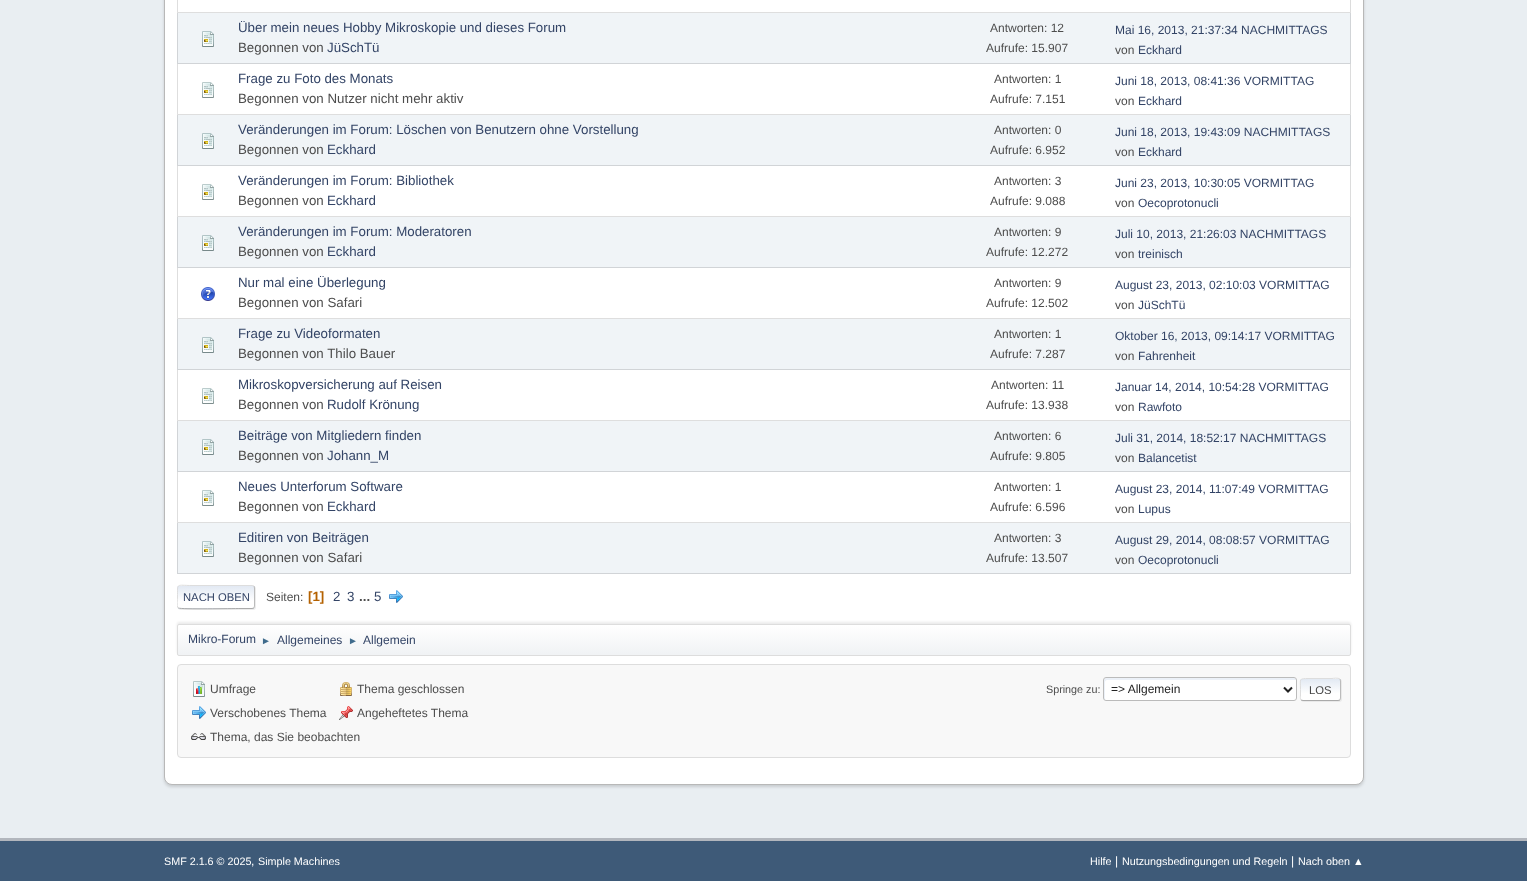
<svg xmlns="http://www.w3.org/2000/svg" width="1527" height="881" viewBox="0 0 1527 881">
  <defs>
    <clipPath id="clip1"><rect x="177" y="585" width="78" height="24" rx="3"/></clipPath>
    <linearGradient id="g1" gradientUnits="userSpaceOnUse" x1="216" y1="586" x2="216" y2="608"><stop offset="0" stop-color="rgb(226,233,243)"/><stop offset="0.7" stop-color="rgb(255,255,255)"/></linearGradient>
    <linearGradient id="g2" gradientUnits="userSpaceOnUse" x1="216" y1="608" x2="216" y2="630"><stop offset="0" stop-color="rgb(226,233,243)"/><stop offset="0.7" stop-color="rgb(255,255,255)"/></linearGradient>
    <clipPath id="clip2"><rect x="177" y="578" width="1174" height="38"/></clipPath>
    <clipPath id="clip3"><rect x="177" y="624" width="1174" height="32" rx="2"/></clipPath>
    <linearGradient id="g3" gradientUnits="userSpaceOnUse" x1="764" y1="625" x2="764" y2="655"><stop offset="0" stop-color="rgb(255,255,255)"/><stop offset="0.95" stop-color="rgb(241,243,245)"/></linearGradient>
    <clipPath id="clip4"><rect x="1300" y="678" width="41" height="23" rx="3"/></clipPath>
    <linearGradient id="g4" gradientUnits="userSpaceOnUse" x1="1321" y1="658" x2="1321" y2="679"><stop offset="0" stop-color="rgb(226,233,243)"/><stop offset="0.7" stop-color="rgb(255,255,255)"/></linearGradient>
    <linearGradient id="g5" gradientUnits="userSpaceOnUse" x1="1321" y1="679" x2="1321" y2="700"><stop offset="0" stop-color="rgb(226,233,243)"/><stop offset="0.7" stop-color="rgb(255,255,255)"/></linearGradient>
  </defs>
  <rect width="100%" height="100%" fill="rgb(233,238,242)"/>
  <rect x="164" y="-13" width="1200" height="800" rx="8" fill="rgba(0,0,0,0.14)" filter="blur(1.5px)"/>
  <rect x="164.5" y="-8.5" width="1199" height="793" rx="7.5" fill="rgb(255,255,255)" stroke="rgb(184,184,184)"/>
  <path d="M1351-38V13L1350 12V-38Z" fill="rgb(220,220,220)"/>
  <path d="M1351 13H177L178 12H1350Z" fill="rgba(0,0,0,0.13)"/>
  <path d="M177 13V-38H178V12Z" fill="rgba(0,0,0,0.13)"/>
  <rect x="177" y="13" width="1174" height="51" fill="rgb(240,244,247)"/>
  <path d="M1351 13V64L1350 63V13Z" fill="rgb(209,212,215)"/>
  <path d="M1351 64H177L178 63H1350Z" fill="rgba(0,0,0,0.13)"/>
  <path d="M177 64V13H178V63Z" fill="rgba(0,0,0,0.13)"/>
  <image x="202" y="31" width="12" height="16" href="pic1.png"/>
  <text x="238" y="32" font-family="Liberation Sans" font-size="13.3" fill="rgb(51,68,102)">Über mein neues Hobby Mikroskopie und dieses Forum</text>
  <text x="238" y="52" font-family="Liberation Sans" font-size="13.3" fill="rgb(77,77,77)">Begonnen von</text>
  <text x="327" y="52" font-family="Liberation Sans" font-size="13.3" fill="rgb(51,68,102)">JüSchTü</text>
  <g font-family="Liberation Sans" font-size="12" fill="rgb(77,77,77)">
    <text x="990" y="32">Antworten: 12</text>
    <text x="986" y="52">Aufrufe: 15.907</text>
  </g>
  <text x="1115" y="34" font-family="Liberation Sans" font-size="12" fill="rgb(51,68,102)">Mai 16, 2013, 21:37:34 NACHMITTAGS</text>
  <text x="1115" y="54" font-family="Liberation Sans" font-size="12" fill="rgb(77,77,77)">von</text>
  <text x="1138" y="54" font-family="Liberation Sans" font-size="12" fill="rgb(51,68,102)">Eckhard</text>
  <path d="M1351 64V115L1350 114V64Z" fill="rgb(220,220,220)"/>
  <path d="M1351 115H177L178 114H1350Z" fill="rgba(0,0,0,0.13)"/>
  <path d="M177 115V64H178V114Z" fill="rgba(0,0,0,0.13)"/>
  <image x="202" y="82" width="12" height="16" href="pic2.png"/>
  <text x="238" y="83" font-family="Liberation Sans" font-size="13.3" fill="rgb(51,68,102)">Frage zu Foto des Monats</text>
  <text x="238" y="103" font-family="Liberation Sans" font-size="13.3" fill="rgb(77,77,77)">Begonnen von Nutzer nicht mehr aktiv</text>
  <g font-family="Liberation Sans" font-size="12" fill="rgb(77,77,77)">
    <text x="994" y="83">Antworten: 1</text>
    <text x="990" y="103">Aufrufe: 7.151</text>
  </g>
  <text x="1115" y="85" font-family="Liberation Sans" font-size="12" fill="rgb(51,68,102)">Juni 18, 2013, 08:41:36 VORMITTAG</text>
  <text x="1115" y="105" font-family="Liberation Sans" font-size="12" fill="rgb(77,77,77)">von</text>
  <text x="1138" y="105" font-family="Liberation Sans" font-size="12" fill="rgb(51,68,102)">Eckhard</text>
  <rect x="177" y="115" width="1174" height="51" fill="rgb(240,244,247)"/>
  <path d="M1351 115V166L1350 165V115Z" fill="rgb(209,212,215)"/>
  <path d="M1351 166H177L178 165H1350Z" fill="rgba(0,0,0,0.13)"/>
  <path d="M177 166V115H178V165Z" fill="rgba(0,0,0,0.13)"/>
  <image x="202" y="133" width="12" height="16" href="pic1.png"/>
  <text x="238" y="134" font-family="Liberation Sans" font-size="13.3" fill="rgb(51,68,102)">Veränderungen im Forum: Löschen von Benutzern ohne Vorstellung</text>
  <text x="238" y="154" font-family="Liberation Sans" font-size="13.3" fill="rgb(77,77,77)">Begonnen von</text>
  <text x="327" y="154" font-family="Liberation Sans" font-size="13.3" fill="rgb(51,68,102)">Eckhard</text>
  <g font-family="Liberation Sans" font-size="12" fill="rgb(77,77,77)">
    <text x="994" y="134">Antworten: 0</text>
    <text x="990" y="154">Aufrufe: 6.952</text>
  </g>
  <text x="1115" y="136" font-family="Liberation Sans" font-size="12" fill="rgb(51,68,102)">Juni 18, 2013, 19:43:09 NACHMITTAGS</text>
  <text x="1115" y="156" font-family="Liberation Sans" font-size="12" fill="rgb(77,77,77)">von</text>
  <text x="1138" y="156" font-family="Liberation Sans" font-size="12" fill="rgb(51,68,102)">Eckhard</text>
  <path d="M1351 166V217L1350 216V166Z" fill="rgb(220,220,220)"/>
  <path d="M1351 217H177L178 216H1350Z" fill="rgba(0,0,0,0.13)"/>
  <path d="M177 217V166H178V216Z" fill="rgba(0,0,0,0.13)"/>
  <image x="202" y="184" width="12" height="16" href="pic2.png"/>
  <text x="238" y="185" font-family="Liberation Sans" font-size="13.3" fill="rgb(51,68,102)">Veränderungen im Forum: Bibliothek</text>
  <text x="238" y="205" font-family="Liberation Sans" font-size="13.3" fill="rgb(77,77,77)">Begonnen von</text>
  <text x="327" y="205" font-family="Liberation Sans" font-size="13.3" fill="rgb(51,68,102)">Eckhard</text>
  <g font-family="Liberation Sans" font-size="12" fill="rgb(77,77,77)">
    <text x="994" y="185">Antworten: 3</text>
    <text x="990" y="205">Aufrufe: 9.088</text>
  </g>
  <text x="1115" y="187" font-family="Liberation Sans" font-size="12" fill="rgb(51,68,102)">Juni 23, 2013, 10:30:05 VORMITTAG</text>
  <text x="1115" y="207" font-family="Liberation Sans" font-size="12" fill="rgb(77,77,77)">von</text>
  <text x="1138" y="207" font-family="Liberation Sans" font-size="12" fill="rgb(51,68,102)">Oecoprotonucli</text>
  <rect x="177" y="217" width="1174" height="51" fill="rgb(240,244,247)"/>
  <path d="M1351 217V268L1350 267V217Z" fill="rgb(209,212,215)"/>
  <path d="M1351 268H177L178 267H1350Z" fill="rgba(0,0,0,0.13)"/>
  <path d="M177 268V217H178V267Z" fill="rgba(0,0,0,0.13)"/>
  <image x="202" y="235" width="12" height="16" href="pic1.png"/>
  <text x="238" y="236" font-family="Liberation Sans" font-size="13.3" fill="rgb(51,68,102)">Veränderungen im Forum: Moderatoren</text>
  <text x="238" y="256" font-family="Liberation Sans" font-size="13.3" fill="rgb(77,77,77)">Begonnen von</text>
  <text x="327" y="256" font-family="Liberation Sans" font-size="13.3" fill="rgb(51,68,102)">Eckhard</text>
  <g font-family="Liberation Sans" font-size="12" fill="rgb(77,77,77)">
    <text x="994" y="236">Antworten: 9</text>
    <text x="986" y="256">Aufrufe: 12.272</text>
  </g>
  <text x="1115" y="238" font-family="Liberation Sans" font-size="12" fill="rgb(51,68,102)">Juli 10, 2013, 21:26:03 NACHMITTAGS</text>
  <text x="1115" y="258" font-family="Liberation Sans" font-size="12" fill="rgb(77,77,77)">von</text>
  <text x="1138" y="258" font-family="Liberation Sans" font-size="12" fill="rgb(51,68,102)">treinisch</text>
  <path d="M1351 268V319L1350 318V268Z" fill="rgb(220,220,220)"/>
  <path d="M1351 319H177L178 318H1350Z" fill="rgba(0,0,0,0.13)"/>
  <path d="M177 319V268H178V318Z" fill="rgba(0,0,0,0.13)"/>
  <image x="201" y="287" width="14" height="14" href="pic3.png"/>
  <text x="238" y="287" font-family="Liberation Sans" font-size="13.3" fill="rgb(51,68,102)">Nur mal eine Überlegung</text>
  <text x="238" y="307" font-family="Liberation Sans" font-size="13.3" fill="rgb(77,77,77)">Begonnen von Safari</text>
  <g font-family="Liberation Sans" font-size="12" fill="rgb(77,77,77)">
    <text x="994" y="287">Antworten: 9</text>
    <text x="986" y="307">Aufrufe: 12.502</text>
  </g>
  <text x="1115" y="289" font-family="Liberation Sans" font-size="12" fill="rgb(51,68,102)">August 23, 2013, 02:10:03 VORMITTAG</text>
  <text x="1115" y="309" font-family="Liberation Sans" font-size="12" fill="rgb(77,77,77)">von</text>
  <text x="1138" y="309" font-family="Liberation Sans" font-size="12" fill="rgb(51,68,102)">JüSchTü</text>
  <rect x="177" y="319" width="1174" height="51" fill="rgb(240,244,247)"/>
  <path d="M1351 319V370L1350 369V319Z" fill="rgb(209,212,215)"/>
  <path d="M1351 370H177L178 369H1350Z" fill="rgba(0,0,0,0.13)"/>
  <path d="M177 370V319H178V369Z" fill="rgba(0,0,0,0.13)"/>
  <image x="202" y="337" width="12" height="16" href="pic1.png"/>
  <text x="238" y="338" font-family="Liberation Sans" font-size="13.3" fill="rgb(51,68,102)">Frage zu Videoformaten</text>
  <text x="238" y="358" font-family="Liberation Sans" font-size="13.3" fill="rgb(77,77,77)">Begonnen von Thilo Bauer</text>
  <g font-family="Liberation Sans" font-size="12" fill="rgb(77,77,77)">
    <text x="994" y="338">Antworten: 1</text>
    <text x="990" y="358">Aufrufe: 7.287</text>
  </g>
  <text x="1115" y="340" font-family="Liberation Sans" font-size="12" fill="rgb(51,68,102)">Oktober 16, 2013, 09:14:17 VORMITTAG</text>
  <text x="1115" y="360" font-family="Liberation Sans" font-size="12" fill="rgb(77,77,77)">von</text>
  <text x="1138" y="360" font-family="Liberation Sans" font-size="12" fill="rgb(51,68,102)">Fahrenheit</text>
  <path d="M1351 370V421L1350 420V370Z" fill="rgb(220,220,220)"/>
  <path d="M1351 421H177L178 420H1350Z" fill="rgba(0,0,0,0.13)"/>
  <path d="M177 421V370H178V420Z" fill="rgba(0,0,0,0.13)"/>
  <image x="202" y="388" width="12" height="16" href="pic2.png"/>
  <text x="238" y="389" font-family="Liberation Sans" font-size="13.3" fill="rgb(51,68,102)">Mikroskopversicherung auf Reisen</text>
  <text x="238" y="409" font-family="Liberation Sans" font-size="13.3" fill="rgb(77,77,77)">Begonnen von</text>
  <text x="327" y="409" font-family="Liberation Sans" font-size="13.3" fill="rgb(51,68,102)">Rudolf Krönung</text>
  <g font-family="Liberation Sans" font-size="12" fill="rgb(77,77,77)">
    <text x="991" y="389">Antworten: 11</text>
    <text x="986" y="409">Aufrufe: 13.938</text>
  </g>
  <text x="1115" y="391" font-family="Liberation Sans" font-size="12" fill="rgb(51,68,102)">Januar 14, 2014, 10:54:28 VORMITTAG</text>
  <text x="1115" y="411" font-family="Liberation Sans" font-size="12" fill="rgb(77,77,77)">von</text>
  <text x="1138" y="411" font-family="Liberation Sans" font-size="12" fill="rgb(51,68,102)">Rawfoto</text>
  <rect x="177" y="421" width="1174" height="51" fill="rgb(240,244,247)"/>
  <path d="M1351 421V472L1350 471V421Z" fill="rgb(209,212,215)"/>
  <path d="M1351 472H177L178 471H1350Z" fill="rgba(0,0,0,0.13)"/>
  <path d="M177 472V421H178V471Z" fill="rgba(0,0,0,0.13)"/>
  <image x="202" y="439" width="12" height="16" href="pic1.png"/>
  <text x="238" y="440" font-family="Liberation Sans" font-size="13.3" fill="rgb(51,68,102)">Beiträge von Mitgliedern finden</text>
  <text x="238" y="460" font-family="Liberation Sans" font-size="13.3" fill="rgb(77,77,77)">Begonnen von</text>
  <text x="327" y="460" font-family="Liberation Sans" font-size="13.3" fill="rgb(51,68,102)">Johann_M</text>
  <g font-family="Liberation Sans" font-size="12" fill="rgb(77,77,77)">
    <text x="994" y="440">Antworten: 6</text>
    <text x="990" y="460">Aufrufe: 9.805</text>
  </g>
  <text x="1115" y="442" font-family="Liberation Sans" font-size="12" fill="rgb(51,68,102)">Juli 31, 2014, 18:52:17 NACHMITTAGS</text>
  <text x="1115" y="462" font-family="Liberation Sans" font-size="12" fill="rgb(77,77,77)">von</text>
  <text x="1138" y="462" font-family="Liberation Sans" font-size="12" fill="rgb(51,68,102)">Balancetist</text>
  <path d="M1351 472V523L1350 522V472Z" fill="rgb(220,220,220)"/>
  <path d="M1351 523H177L178 522H1350Z" fill="rgba(0,0,0,0.13)"/>
  <path d="M177 523V472H178V522Z" fill="rgba(0,0,0,0.13)"/>
  <image x="202" y="490" width="12" height="16" href="pic2.png"/>
  <text x="238" y="491" font-family="Liberation Sans" font-size="13.3" fill="rgb(51,68,102)">Neues Unterforum Software</text>
  <text x="238" y="511" font-family="Liberation Sans" font-size="13.3" fill="rgb(77,77,77)">Begonnen von</text>
  <text x="327" y="511" font-family="Liberation Sans" font-size="13.3" fill="rgb(51,68,102)">Eckhard</text>
  <g font-family="Liberation Sans" font-size="12" fill="rgb(77,77,77)">
    <text x="994" y="491">Antworten: 1</text>
    <text x="990" y="511">Aufrufe: 6.596</text>
  </g>
  <text x="1115" y="493" font-family="Liberation Sans" font-size="12" fill="rgb(51,68,102)">August 23, 2014, 11:07:49 VORMITTAG</text>
  <text x="1115" y="513" font-family="Liberation Sans" font-size="12" fill="rgb(77,77,77)">von</text>
  <text x="1138" y="513" font-family="Liberation Sans" font-size="12" fill="rgb(51,68,102)">Lupus</text>
  <rect x="177" y="523" width="1174" height="51" fill="rgb(240,244,247)"/>
  <path d="M1351 523V574L1350 573V523Z" fill="rgb(209,212,215)"/>
  <path d="M1351 574H177L178 573H1350Z" fill="rgba(0,0,0,0.13)"/>
  <path d="M177 574V523H178V573Z" fill="rgba(0,0,0,0.13)"/>
  <image x="202" y="541" width="12" height="16" href="pic1.png"/>
  <text x="238" y="542" font-family="Liberation Sans" font-size="13.3" fill="rgb(51,68,102)">Editiren von Beiträgen</text>
  <text x="238" y="562" font-family="Liberation Sans" font-size="13.3" fill="rgb(77,77,77)">Begonnen von Safari</text>
  <g font-family="Liberation Sans" font-size="12" fill="rgb(77,77,77)">
    <text x="994" y="542">Antworten: 3</text>
    <text x="986" y="562">Aufrufe: 13.507</text>
  </g>
  <text x="1115" y="544" font-family="Liberation Sans" font-size="12" fill="rgb(51,68,102)">August 29, 2014, 08:08:57 VORMITTAG</text>
  <text x="1115" y="564" font-family="Liberation Sans" font-size="12" fill="rgb(77,77,77)">von</text>
  <text x="1138" y="564" font-family="Liberation Sans" font-size="12" fill="rgb(51,68,102)">Oecoprotonucli</text>
  <rect x="178" y="586" width="78" height="24" rx="3" fill="rgba(221,221,221,0.57)" filter="blur(0.5px)"/>
  <g clip-path="url(#clip1)">
    <rect x="177" y="586" width="78" height="22" fill="url(#g1)"/>
    <rect x="177" y="608" width="78" height="1" fill="url(#g2)"/>
  </g>
  <path d="M254 586C254 586.5 254.5 587.5 254.5 588V606C254.5 606.5 254 607.5 254 608" fill="none" stroke="rgb(187,187,187)"/>
  <path d="M254 608L252 608.5H240C233 608.5 180.5 609.5 178.5 608H178" fill="none" stroke="rgb(170,170,170)"/>
  <g clip-path="url(#clip2)">
    <path d="M178 608C176.5 606 177.5 599 177.5 597C177.5 582.5 176 585.5 192 585.5H252L254 586" fill="none" stroke="rgb(221,221,221)"/>
  </g>
  <text x="183" y="601" font-family="Liberation Sans" font-size="11.25" fill="rgb(51,68,102)">NACH OBEN</text>
  <text x="266" y="601" font-family="Liberation Sans" font-size="12" fill="rgb(77,77,77)">Seiten:</text>
  <text x="308" y="601" font-family="Liberation Sans" font-size="13.3" font-weight="bold" fill="rgb(180,97,0)">[1]</text>
  <g font-family="Liberation Sans" font-size="13.3" fill="rgb(51,68,102)">
    <text x="333" y="601">2</text>
    <text x="347" y="601">3</text>
  </g>
  <text x="359" y="601" font-family="Liberation Sans" font-size="13.3" font-weight="bold" fill="rgb(77,77,77)">...</text>
  <text x="374" y="601" font-family="Liberation Sans" font-size="13.3" fill="rgb(51,68,102)">5</text>
  <image x="389" y="590" width="14" height="13" href="pic4.png"/>
  <rect x="177" y="622" width="1174" height="32" rx="2" fill="rgba(0,0,0,0.08)" filter="blur(1px)"/>
  <g clip-path="url(#clip3)">
    <rect x="177" y="625" width="1174" height="30" fill="url(#g3)"/>
  </g>
  <rect x="177.5" y="624.5" width="1173" height="31" rx="1.5" fill="none" stroke="rgb(221,221,221)"/>
  <text x="188" y="643" font-family="Liberation Sans" font-size="12" fill="rgb(51,68,102)">Mikro-Forum</text>
  <text x="261" y="644" font-family="Liberation Sans" font-size="10" fill="rgb(63,107,140)">►</text>
  <text x="277" y="644" font-family="Liberation Sans" font-size="12" fill="rgb(51,68,102)">Allgemeines</text>
  <text x="348" y="644" font-family="Liberation Sans" font-size="10" fill="rgb(63,107,140)">►</text>
  <text x="363" y="644" font-family="Liberation Sans" font-size="12" fill="rgb(51,68,102)">Allgemein</text>
  <rect x="177.5" y="664.5" width="1173" height="93" rx="3.5" fill="rgb(248,248,248)" stroke="rgb(221,221,221)"/>
  <image x="193" y="681" width="12" height="16" href="pic5.png"/>
  <text x="210" y="693" font-family="Liberation Sans" font-size="12" fill="rgb(77,77,77)">Umfrage</text>
  <image x="192" y="706" width="14" height="13" href="pic6.png"/>
  <text x="210" y="717" font-family="Liberation Sans" font-size="12" fill="rgb(77,77,77)">Verschobenes Thema</text>
  <image x="340" y="682" width="12" height="14" href="pic7.png"/>
  <text x="357" y="693" font-family="Liberation Sans" font-size="12" fill="rgb(77,77,77)">Thema geschlossen</text>
  <image x="339" y="706" width="14" height="14" href="pic8.png"/>
  <text x="357" y="717" font-family="Liberation Sans" font-size="12" fill="rgb(77,77,77)">Angeheftetes Thema</text>
  <image x="191" y="733" width="15" height="7" href="pic9.png"/>
  <text x="210" y="741" font-family="Liberation Sans" font-size="12" fill="rgb(77,77,77)">Thema, das Sie beobachten</text>
  <text x="1046" y="693" font-family="Liberation Sans" font-size="10.75" fill="rgb(77,77,77)">Springe zu:</text>
  <rect x="1103" y="677" width="194" height="24" rx="3" fill="rgb(255,255,255)"/>
  <path d="M1107 680H1296C1296 679 1295 678 1294 678H1106C1105 678 1104 679 1104 680V698C1104 699 1104 699 1105 700V682C1105 681 1106 680 1107 680Z" fill="rgb(236,241,248)"/>
  <rect x="1103.5" y="677.5" width="193" height="23" rx="2.5" fill="none" stroke="rgb(187,187,187)"/>
  <path d="M1284 687.5L1288 691.5L1292 687.5" fill="none" stroke="rgb(34,34,34)" stroke-width="2"/>
  <text x="1111" y="693" font-family="Liberation Sans" font-size="12" fill="rgb(34,34,34)">=&gt; Allgemein</text>
  <rect x="1301" y="679" width="41" height="23" rx="3" fill="rgba(221,221,221,0.57)" filter="blur(0.5px)"/>
  <g clip-path="url(#clip4)">
    <rect x="1300" y="678" width="41" height="1" fill="url(#g4)"/>
    <rect x="1300" y="679" width="41" height="21" fill="url(#g5)"/>
  </g>
  <path d="M1340 679C1340 679.5 1340.5 680.5 1340.5 681V698C1340.5 698.5 1340 699.5 1340 700" fill="none" stroke="rgb(187,187,187)"/>
  <path d="M1340 700L1338 700.5H1303L1301 700" fill="none" stroke="rgb(170,170,170)"/>
  <path d="M1301 700C1300 698.5 1300.5 696.5 1300.5 695V689.5C1300.5 678.5 1298.5 678.5 1309 678.5H1332C1333 678.5 1338 677.5 1340 679" fill="none" stroke="rgb(221,221,221)"/>
  <text x="1309" y="694" font-family="Liberation Sans" font-size="11.25" fill="rgb(68,68,68)">LOS</text>
  <rect x="0" y="841" width="1527" height="40" fill="rgb(62,90,120)"/>
  <rect x="0" y="838" width="1527" height="3" fill="rgb(178,182,189)"/>
  <text x="164" y="865" font-family="Liberation Sans" font-size="10.75" fill="rgb(255,255,255)">SMF 2.1.6 © 2025</text>
  <text x="251" y="865" font-family="Liberation Sans" font-size="12" fill="rgb(255,255,255)">,</text>
  <g font-family="Liberation Sans" font-size="10.75" fill="rgb(255,255,255)">
    <text x="258" y="865">Simple Machines</text>
    <text x="1090" y="865">Hilfe</text>
  </g>
  <text x="1115" y="865" font-family="Liberation Sans" font-size="12" fill="rgb(255,255,255)">|</text>
  <text x="1122" y="865" font-family="Liberation Sans" font-size="10.75" fill="rgb(255,255,255)">Nutzungsbedingungen und Regeln</text>
  <text x="1291" y="865" font-family="Liberation Sans" font-size="12" fill="rgb(255,255,255)">|</text>
  <text x="1298" y="865" font-family="Liberation Sans" font-size="10.75" fill="rgb(255,255,255)">Nach oben ▲</text>
</svg>
